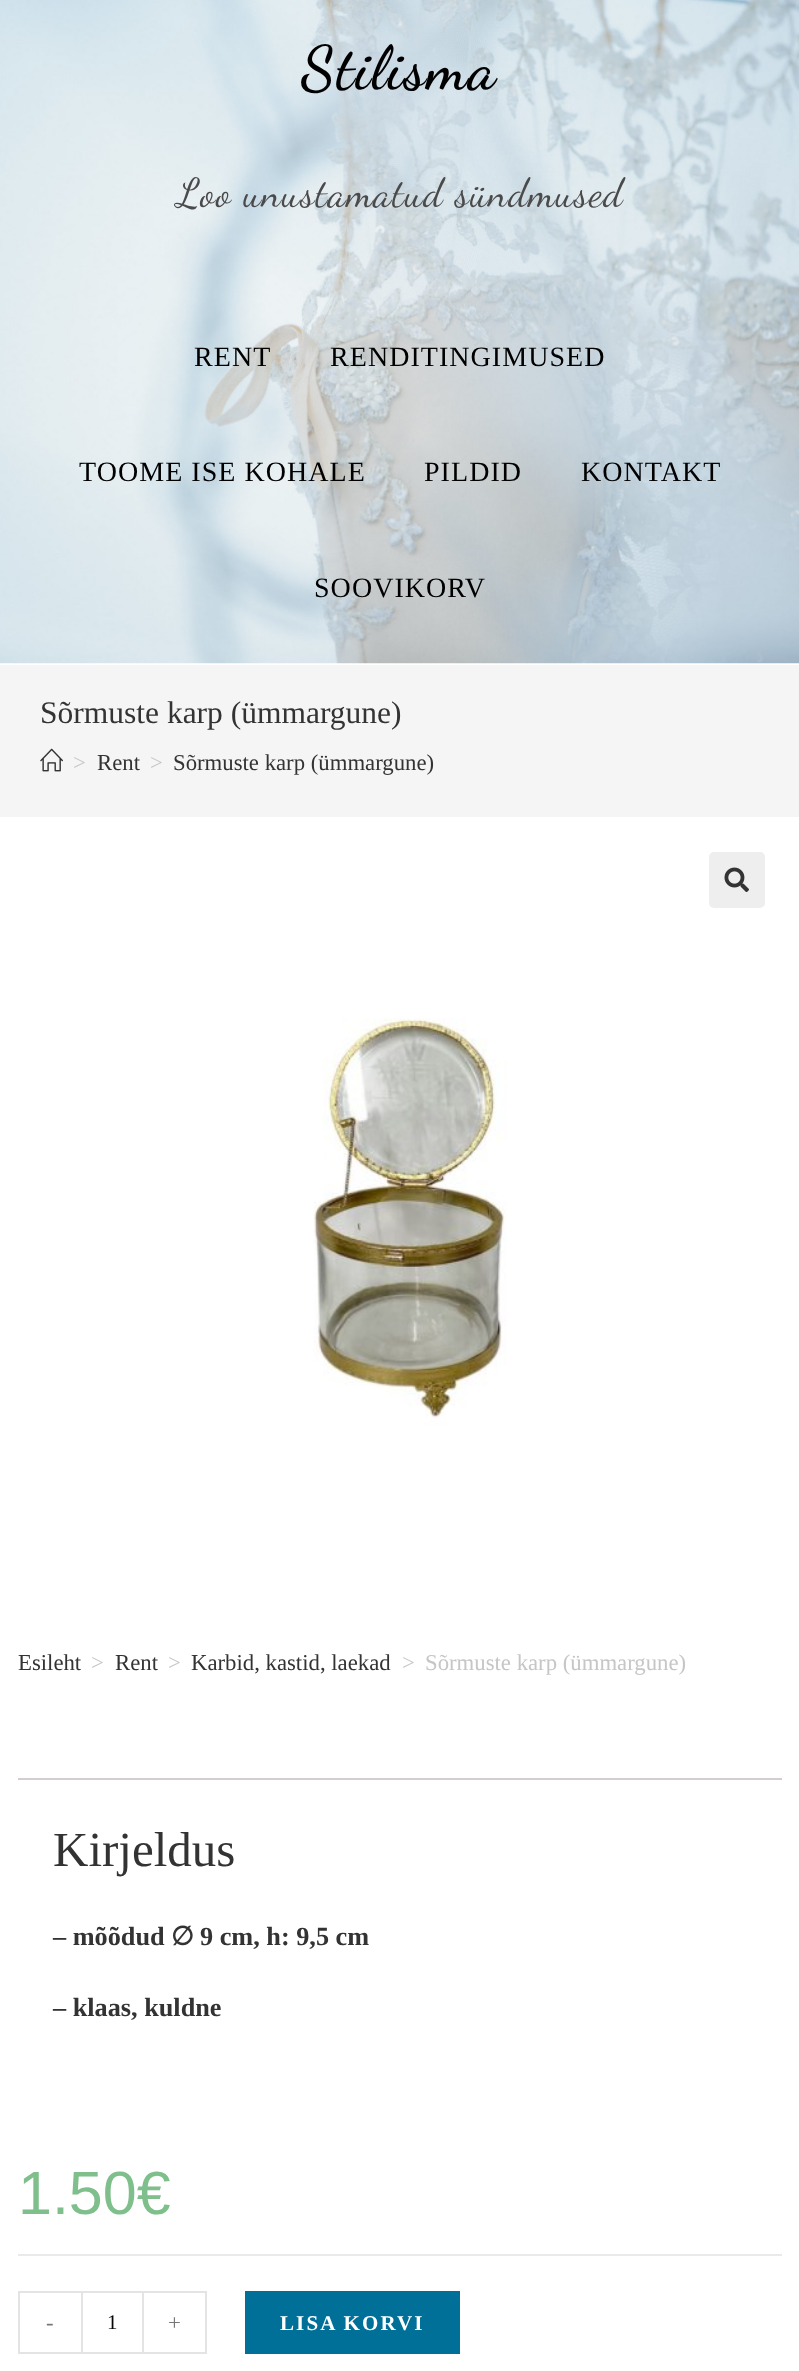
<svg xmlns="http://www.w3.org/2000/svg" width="799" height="2371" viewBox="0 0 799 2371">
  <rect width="100%" height="100%" fill="rgb(255,255,255)"/>
  <image x="0" y="0" width="799" height="664" href="pic1.png"/>
  <text x="301" y="88" font-family="Dancing Script" font-size="61" font-weight="600" letter-spacing="1.5" fill="rgb(0,0,0)">Stilisma</text>
  <text x="177" y="206" font-family="Dancing Script" font-size="40.25" letter-spacing="1.05" fill="rgb(74,74,74)">Loo unustamatud sündmused</text>
  <g font-family="Liberation Serif" font-size="28" letter-spacing="1.05" fill="rgb(0,0,0)">
    <text x="194" y="366">RENT</text>
    <text x="330" y="366">RENDITINGIMUSED</text>
    <text x="79" y="481">TOOME ISE KOHALE</text>
    <text x="424" y="481">PILDID</text>
    <text x="581" y="481">KONTAKT</text>
    <text x="314" y="597">SOOVIKORV</text>
  </g>
  <rect x="0" y="665" width="799" height="152" fill="rgb(245,245,245)"/>
  <text x="40" y="723" font-family="Liberation Serif" font-size="31.5" fill="rgb(51,51,51)">Sõrmuste karp (ümmargune)</text>
  <image x="40" y="748" width="23" height="24" href="pic2.png"/>
  <text x="73" y="770" font-family="Liberation Serif" font-size="22.75" fill="rgb(198,198,198)">&gt;</text>
  <text x="97" y="770" font-family="Liberation Serif" font-size="22.75" fill="rgb(51,51,51)">Rent</text>
  <text x="150" y="770" font-family="Liberation Serif" font-size="22.75" fill="rgb(198,198,198)">&gt;</text>
  <text x="173" y="770" font-family="Liberation Serif" font-size="22.75" fill="rgb(51,51,51)">Sõrmuste karp (ümmargune)</text>
  <rect x="709" y="852" width="56" height="56" rx="5" fill="rgb(238,238,238)"/>
  <image x="724" y="867" width="25" height="25" href="pic3.png"/>
  <image x="313" y="1018" width="194" height="408" href="pic4.png"/>
  <text x="18" y="1670" font-family="Liberation Serif" font-size="22.75" fill="rgb(51,51,51)">Esileht</text>
  <text x="91" y="1670" font-family="Liberation Serif" font-size="22.75" fill="rgb(198,198,198)">&gt;</text>
  <text x="115" y="1670" font-family="Liberation Serif" font-size="22.75" fill="rgb(51,51,51)">Rent</text>
  <text x="168" y="1670" font-family="Liberation Serif" font-size="22.75" fill="rgb(198,198,198)">&gt;</text>
  <text x="191" y="1670" font-family="Liberation Serif" font-size="22.75" fill="rgb(51,51,51)">Karbid, kastid, laekad</text>
  <g font-family="Liberation Serif" font-size="22.75" fill="rgb(198,198,198)">
    <text x="402" y="1670">&gt;</text>
    <text x="425" y="1670">Sõrmuste karp (ümmargune)</text>
  </g>
  <rect x="18" y="1778" width="764" height="2" fill="rgb(211,206,210)"/>
  <text x="53" y="1866" font-family="Liberation Serif" font-size="49" fill="rgb(51,51,51)">Kirjeldus</text>
  <text x="53" y="1945" font-family="Liberation Serif" font-size="26.25" font-weight="bold" fill="rgb(51,51,51)">– mõõdud</text>
  <text x="171" y="1945" font-family="DejaVu Sans" font-size="26.25" font-weight="bold" fill="rgb(51,51,51)">∅</text>
  <g font-family="Liberation Serif" font-size="26.25" font-weight="bold" fill="rgb(51,51,51)">
    <text x="200" y="1945">9 cm, h: 9,5 cm</text>
    <text x="53" y="2016">– klaas, kuldne</text>
  </g>
  <text x="18" y="2214" font-family="Liberation Sans" font-size="61" fill="rgb(126,191,140)">1.50€</text>
  <rect x="18" y="2254" width="764" height="2" fill="rgb(234,234,234)"/>
  <rect x="18" y="2291" width="63" height="2" fill="rgb(228,228,228)"/>
  <rect x="18" y="2352" width="63" height="2" fill="rgb(228,228,228)"/>
  <rect x="18" y="2291" width="2" height="63" fill="rgb(228,228,228)"/>
  <text x="46" y="2330" font-family="Liberation Serif" font-size="22.75" fill="rgb(119,119,119)">-</text>
  <rect x="82" y="2292" width="61" height="61" fill="none" stroke="rgb(228,228,228)" stroke-width="2"/>
  <text x="107" y="2329" font-family="Liberation Serif" font-size="21" fill="rgb(7,7,7)">1</text>
  <rect x="144" y="2291" width="63" height="2" fill="rgb(228,228,228)"/>
  <rect x="205" y="2291" width="2" height="63" fill="rgb(228,228,228)"/>
  <rect x="144" y="2352" width="63" height="2" fill="rgb(228,228,228)"/>
  <text x="168" y="2330" font-family="Liberation Serif" font-size="22.75" fill="rgb(119,119,119)">+</text>
  <rect x="245" y="2291" width="215" height="63" fill="rgb(0,112,153)"/>
  <text x="280" y="2330" font-family="Liberation Serif" font-size="21" font-weight="bold" letter-spacing="2.1" fill="rgb(255,255,255)">LISA KORVI</text>
</svg>
